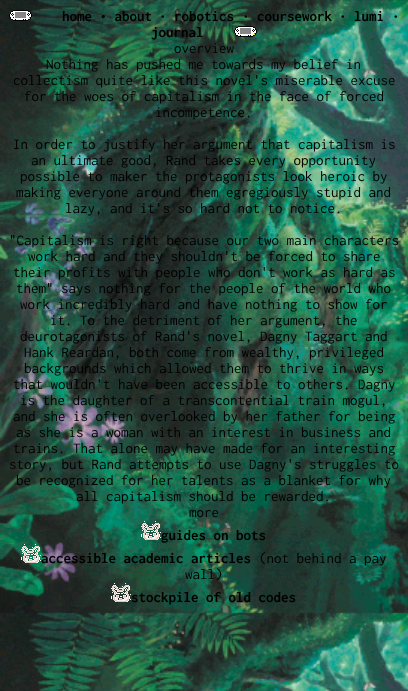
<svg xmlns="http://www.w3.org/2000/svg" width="408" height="691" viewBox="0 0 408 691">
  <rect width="100%" height="100%" fill="rgb(255,255,255)"/>
  <image x="0" y="0" width="408" height="691" href="pic1.png"/>
  <image x="9" y="10" width="23" height="11" href="pic2.png"/>
  <text x="62" y="21" font-family="Inconsolata" font-size="15" font-weight="bold" fill="rgb(0,0,0)">home • about</text>
  <text x="159" y="21" font-family="Inconsolata" font-size="15" fill="rgb(0,0,0)">•</text>
  <text x="174" y="21" font-family="Inconsolata" font-size="15" font-weight="bold" fill="rgb(0,0,0)">robotics</text>
  <text x="242" y="21" font-family="Inconsolata" font-size="15" fill="rgb(0,0,0)">•</text>
  <text x="257" y="21" font-family="Inconsolata" font-size="15" font-weight="bold" fill="rgb(0,0,0)">coursework</text>
  <text x="339" y="21" font-family="Inconsolata" font-size="15" fill="rgb(0,0,0)">•</text>
  <text x="354" y="21" font-family="Inconsolata" font-size="15" font-weight="bold" fill="rgb(0,0,0)">lumi</text>
  <text x="392" y="21" font-family="Inconsolata" font-size="15" fill="rgb(0,0,0)">•</text>
  <text x="151" y="37" font-family="Inconsolata" font-size="15" font-weight="bold" fill="rgb(0,0,0)">journal</text>
  <image x="234" y="26" width="23" height="11" href="pic3.png"/>
  <g font-family="Inconsolata" font-size="15" fill="rgb(0,0,0)">
    <text x="174" y="53">overview</text>
    <text x="46" y="69">Nothing has pushed me towards my belief in</text>
    <text x="13" y="85">collectism quite like this novel's miserable excuse</text>
    <text x="24" y="101">for the woes of capitalism in the face of forced</text>
    <text x="155" y="117">incompetence.</text>
    <text x="13" y="149">In order to justify her argument that capitalism is</text>
    <text x="31" y="165">an ultimate good, Rand takes every opportunity</text>
    <text x="20" y="181">possible to maker the protagonists look heroic by</text>
    <text x="16" y="197">making everyone around them egregiously stupid and</text>
    <text x="65" y="213">lazy, and it's so hard not to notice.</text>
    <text x="9" y="245">"Capitalism is right because our two main characters</text>
    <text x="28" y="261">work hard and they shouldn't be forced to share</text>
    <text x="13" y="277">their profits with people who don't work as hard as</text>
    <text x="16" y="293">them" says nothing for the people of the world who</text>
    <text x="20" y="309">work incredibly hard and have nothing to show for</text>
    <text x="50" y="325">it. To the detriment of her argument, the</text>
    <text x="20" y="341">deurotagonists of Rand's novel, Dagny Taggart and</text>
    <text>
      <tspan x="24" y="357">Hank Reardan, both come from wealthy, privileged</tspan>
      <tspan x="24" y="373">backgrounds which allowed them to thrive in ways</tspan>
    </text>
    <text x="13" y="389">that wouldn't have been accessible to others. Dagny</text>
    <text x="20" y="405">is the daughter of a transcontential train mogul,</text>
    <text x="13" y="421">and she is often overlooked by her father for being</text>
    <text x="16" y="437">as she is a woman with an interest in business and</text>
    <text x="13" y="453">trains. That alone may have made for an interesting</text>
    <text x="9" y="469">story, but Rand attempts to use Dagny's struggles to</text>
    <text x="16" y="485">be recognized for her talents as a blanket for why</text>
    <text x="76" y="501">all capitalism should be rewarded.</text>
    <text x="189" y="517">more</text>
  </g>
  <image x="141" y="521" width="20" height="19" href="pic4.png"/>
  <text x="161" y="540" font-family="Inconsolata" font-size="15" font-weight="bold" fill="rgb(0,0,0)">guides on bots</text>
  <image x="21" y="544" width="20" height="19" href="pic5.png"/>
  <text x="41" y="563" font-family="Inconsolata" font-size="15" font-weight="bold" fill="rgb(0,0,0)">accessible academic articles</text>
  <g font-family="Inconsolata" font-size="15" fill="rgb(0,0,0)">
    <text x="259" y="563">(not behind a pay</text>
    <text x="185" y="579">wall)</text>
  </g>
  <image x="111" y="583" width="20" height="19" href="pic6.png"/>
  <text x="131" y="602" font-family="Inconsolata" font-size="15" font-weight="bold" fill="rgb(0,0,0)">stockpile of old codes</text>
</svg>
